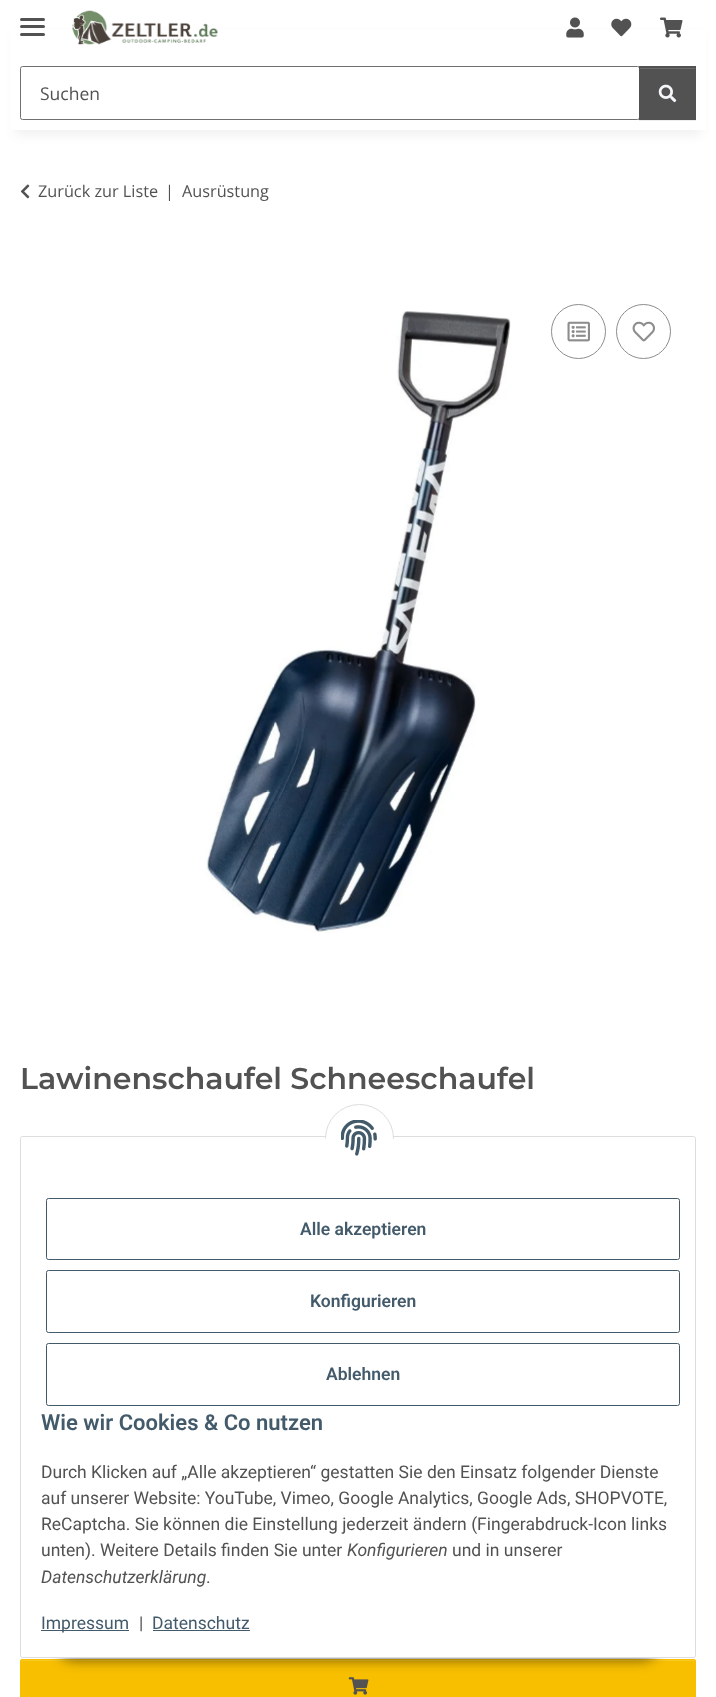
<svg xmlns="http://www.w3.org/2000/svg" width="716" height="1697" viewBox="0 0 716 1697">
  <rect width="100%" height="100%" fill="rgb(255,255,255)"/>
  <rect x="15" y="35" width="686" height="100" fill="rgba(0,0,0,0.06)" filter="blur(5.5px)"/>
  <rect x="10" y="30" width="696" height="100" fill="rgb(255,255,255)"/>
  <rect x="20" y="25" width="25" height="3" rx="1.5" fill="rgb(82,82,82)"/>
  <rect x="20" y="18" width="25" height="3" rx="1.5" fill="rgb(82,82,82)"/>
  <rect x="20" y="33" width="25" height="3" rx="1.5" fill="rgb(82,82,82)"/>
  <image x="72" y="10" width="146" height="35" href="pic1.png"/>
  <image x="566" y="17" width="18" height="21" href="pic2.png"/>
  <image x="611" y="18" width="21" height="19" href="pic3.png"/>
  <image x="660" y="17" width="23" height="21" href="pic4.png"/>
  <rect x="20.5" y="66.5" width="619" height="53" rx="2" fill="none" stroke="rgb(112,112,112)"/>
  <text x="40" y="100" font-family="Open Sans" font-size="17.5" fill="rgb(82,82,82)">Suchen</text>
  <rect x="639" y="68" width="57" height="53" fill="rgba(0,0,0,0.07)" filter="blur(0.5px)"/>
  <rect x="639" y="66" width="57" height="54" fill="rgb(82,82,82)"/>
  <rect x="640" y="68" width="55" height="1" fill="rgb(108,108,108)"/>
  <image x="658" y="84" width="19" height="19" href="pic5.png"/>
  <image x="20" y="184" width="10" height="15" href="pic6.png"/>
  <g font-family="Open Sans" font-size="16.25" fill="rgb(82,82,82)">
    <text x="38" y="197">Zurück zur Liste</text>
    <text x="165" y="197">|</text>
    <text x="182" y="197">Ausrüstung</text>
  </g>
  <image x="205" y="311" width="306" height="622" href="pic7.png"/>
  <circle cx="578.5" cy="331.5" r="27" fill="none" stroke="rgb(141,141,141)"/>
  <image x="567" y="321" width="23" height="21" href="pic8.png"/>
  <circle cx="643.5" cy="331.5" r="27" fill="none" stroke="rgb(141,141,141)"/>
  <image x="632" y="321" width="23" height="21" href="pic9.png"/>
  <text x="20" y="1089" font-family="Montserrat" font-size="30" font-weight="600" fill="rgb(82,82,82)">Lawinenschaufel Schneeschaufel</text>
  <rect x="20" y="1659" width="676" height="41" rx="2.5" fill="rgb(248,191,0)"/>
  <path d="M22 1661H694L695 1662C695 1661 695 1660 694 1660H22C21 1660 21 1661 21 1662Z" fill="rgb(249,201,38)"/>
  <rect x="20.5" y="1659.5" width="675" height="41" rx="2" fill="none" stroke="rgb(248,191,0)"/>
  <image x="348" y="1677" width="21" height="18" href="pic10.png"/>
  <rect x="55" y="1621" width="606" height="40" rx="20" fill="rgba(0,0,0,0.45)" filter="blur(6px)"/>
  <rect x="20.5" y="1136.5" width="675" height="521" rx="2" fill="rgb(255,255,255)" stroke="rgb(221,221,221)"/>
  <circle cx="359.5" cy="1138.5" r="34" fill="rgb(255,255,255)" stroke="rgb(221,221,221)"/>
  <rect x="325" y="1139" width="69" height="34" fill="rgb(255,255,255)"/>
  <image x="341" y="1120" width="36" height="36" href="pic11.png"/>
  <rect x="46.5" y="1198.5" width="633" height="61" rx="2" fill="none" stroke="rgb(67,90,107)"/>
  <text x="300" y="1235" font-family="Roboto" font-size="17.5" font-weight="600" fill="rgb(67,90,107)">Alle akzeptieren</text>
  <rect x="46.5" y="1270.5" width="633" height="62" rx="2" fill="none" stroke="rgb(67,90,107)"/>
  <text x="310" y="1307" font-family="Roboto" font-size="17.5" font-weight="600" fill="rgb(67,90,107)">Konfigurieren</text>
  <rect x="46.5" y="1343.5" width="633" height="62" rx="2" fill="none" stroke="rgb(67,90,107)"/>
  <text x="326" y="1380" font-family="Roboto" font-size="17.5" font-weight="600" fill="rgb(67,90,107)">Ablehnen</text>
  <text x="41" y="1430" font-family="Roboto" font-size="22" font-weight="600" fill="rgb(67,90,107)">Wie wir Cookies &amp; Co nutzen</text>
  <g font-family="Roboto" font-size="17.5" fill="rgb(82,82,82)">
    <text>
      <tspan x="41" y="1478">Durch Klicken auf „Alle akzeptieren“ gestatten Sie den Einsatz folgender Dienste</tspan>
      <tspan x="41" y="1504">auf unserer Website: YouTube, Vimeo, Google Analytics, Google Ads, SHOPVOTE,</tspan>
      <tspan x="41" y="1530">ReCaptcha. Sie können die Einstellung jederzeit ändern (Fingerabdruck-Icon links</tspan>
      <tspan x="41" y="1556">unten). Weitere Details finden Sie unter</tspan>
    </text>
  </g>
  <text x="347" y="1556" font-family="Roboto" font-size="17.5" font-style="italic" fill="rgb(82,82,82)">Konfigurieren</text>
  <text x="452" y="1556" font-family="Roboto" font-size="17.5" fill="rgb(82,82,82)">und in unserer</text>
  <text x="41" y="1583" font-family="Roboto" font-size="17.5" font-style="italic" fill="rgb(82,82,82)">Datenschutzerklärung</text>
  <text x="206" y="1583" font-family="Roboto" font-size="17.5" fill="rgb(82,82,82)">.</text>
  <rect x="41" y="1630" width="88" height="1" fill="rgb(67,90,107)"/>
  <text x="41" y="1629" font-family="Roboto" font-size="17.5" fill="rgb(67,90,107)">Impressum</text>
  <text x="139" y="1629" font-family="Roboto" font-size="17.5" fill="rgb(82,82,82)">|</text>
  <text x="152" y="1629" font-family="Roboto" font-size="17.5" fill="rgb(67,90,107)">Datenschutz</text>
  <rect x="153" y="1630" width="97" height="1" fill="rgb(67,90,107)"/>
</svg>
